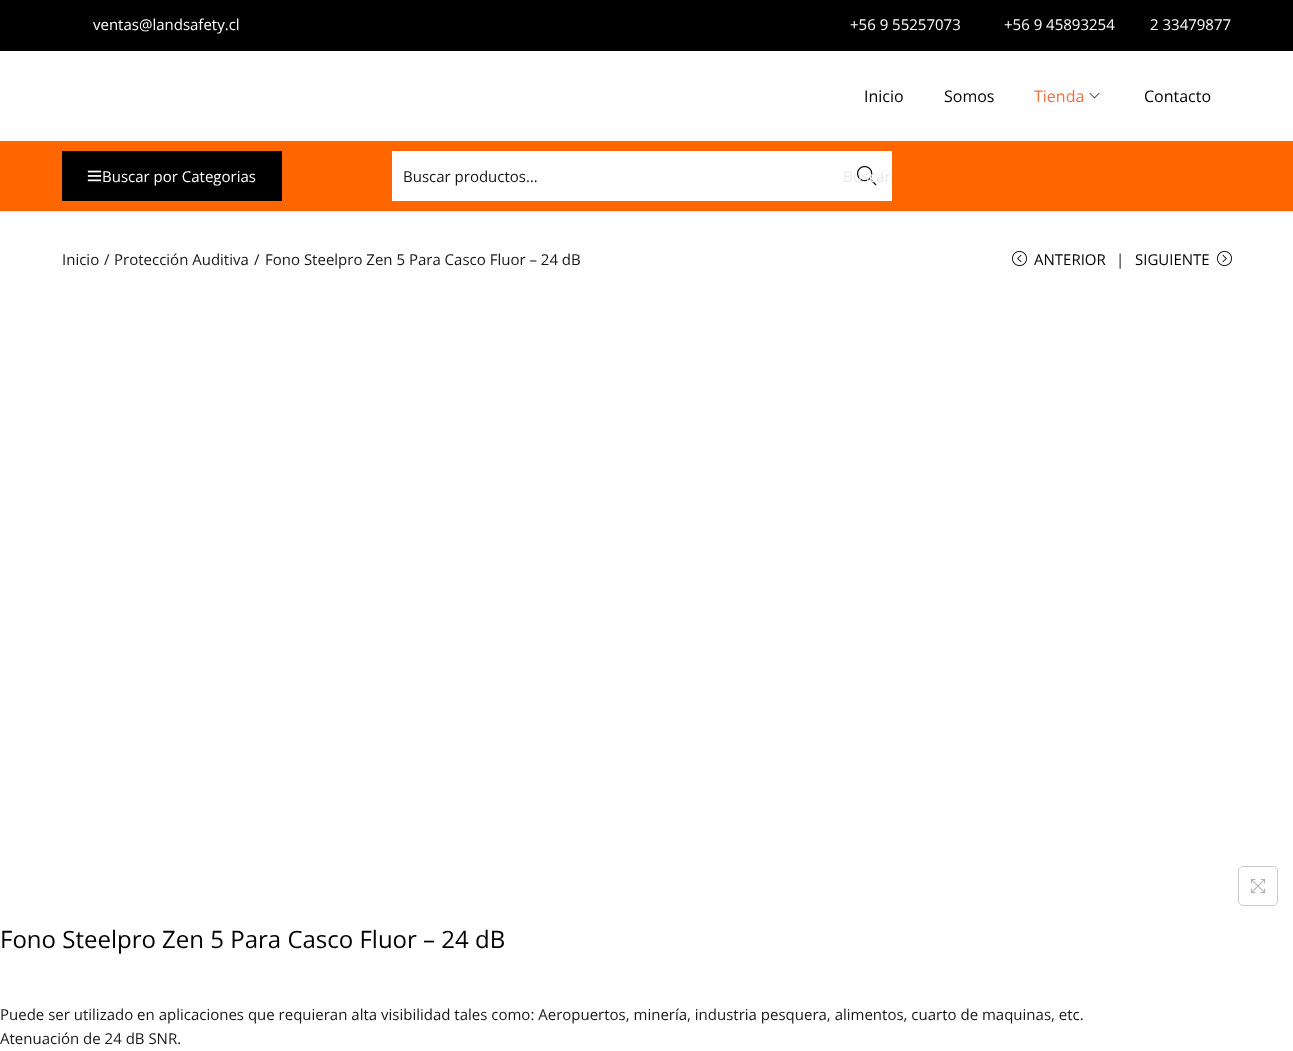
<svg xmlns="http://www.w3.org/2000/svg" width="1293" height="1051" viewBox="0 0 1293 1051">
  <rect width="100%" height="100%" fill="rgb(255,255,255)"/>
  <rect x="0" y="0" width="1293" height="51" fill="rgb(0,0,0)"/>
  <g font-family="Open Sans" font-size="15" fill="rgb(255,255,255)">
    <text x="93" y="30">ventas@landsafety.cl</text>
    <text x="850" y="30">+56 9 55257073</text>
    <text x="1004" y="30">+56 9 45893254</text>
    <text x="1150" y="30">2 33479877</text>
  </g>
  <rect x="0" y="211" width="1293" height="1" fill="rgb(234,234,234)"/>
  <g font-family="Open Sans" font-size="16" fill="rgb(0,0,0)">
    <text x="864" y="102">Inicio</text>
    <text x="944" y="102">Somos</text>
  </g>
  <text x="1034" y="102" font-family="Open Sans" font-size="16" fill="rgb(245,110,62)">Tienda</text>
  <image x="1089" y="92" width="11" height="7" href="pic1.png"/>
  <text x="1144" y="102" font-family="Open Sans" font-size="16" fill="rgb(0,0,0)">Contacto</text>
  <rect x="0" y="141" width="1293" height="70" fill="rgb(255,102,0)"/>
  <rect x="62" y="151" width="220" height="50" fill="rgb(0,0,0)"/>
  <image x="87" y="170" width="15" height="12" href="pic2.png"/>
  <text x="102" y="182" font-family="Open Sans" font-size="15" fill="rgb(255,255,255)">Buscar por Categorias</text>
  <rect x="392" y="151" width="500" height="50" fill="rgb(255,255,255)"/>
  <text x="403" y="182" font-family="Open Sans" font-size="15" fill="rgb(23,22,22)">Buscar productos…</text>
  <image x="857" y="166" width="20" height="20" href="pic3.png"/>
  <text x="843" y="182" font-family="Open Sans" font-size="15" fill="rgb(233,233,233)">Buscar</text>
  <g font-family="Open Sans" font-size="15" fill="rgb(23,22,22)">
    <text x="62" y="265">Inicio</text>
    <text x="104" y="265">/</text>
    <text x="114" y="265">Protección Auditiva</text>
    <text x="254" y="265">/</text>
    <text x="265" y="265">Fono Steelpro Zen 5 Para Casco Fluor – 24 dB</text>
  </g>
  <image x="1012" y="251" width="15" height="15" href="pic4.png"/>
  <text x="1034" y="265" font-family="Open Sans" font-size="15" fill="rgb(0,0,0)">ANTERIOR</text>
  <text x="1116" y="265" font-family="Open Sans" font-size="15" fill="rgb(23,22,22)">|</text>
  <text x="1135" y="265" font-family="Open Sans" font-size="15" fill="rgb(0,0,0)">SIGUIENTE</text>
  <image x="1217" y="251" width="15" height="15" href="pic5.png"/>
  <rect x="1238.5" y="866.5" width="39" height="39" rx="4.5" fill="none" stroke="rgb(204,204,204)"/>
  <image x="1250" y="878" width="16" height="16" href="pic6.png"/>
  <text x="0" y="948" font-family="Open Sans" font-size="24" fill="rgb(0,0,0)">Fono Steelpro Zen 5 Para Casco Fluor – 24 dB</text>
  <g font-family="Open Sans" font-size="15" fill="rgb(23,22,22)">
    <text>
      <tspan x="0" y="1020">Puede ser utilizado en aplicaciones que requieran alta visibilidad tales como: Aeropuertos, minería, industria pesquera, alimentos, cuarto de maquinas, etc.</tspan>
      <tspan x="0" y="1044">Atenuación de 24 dB SNR.</tspan>
    </text>
  </g>
</svg>
